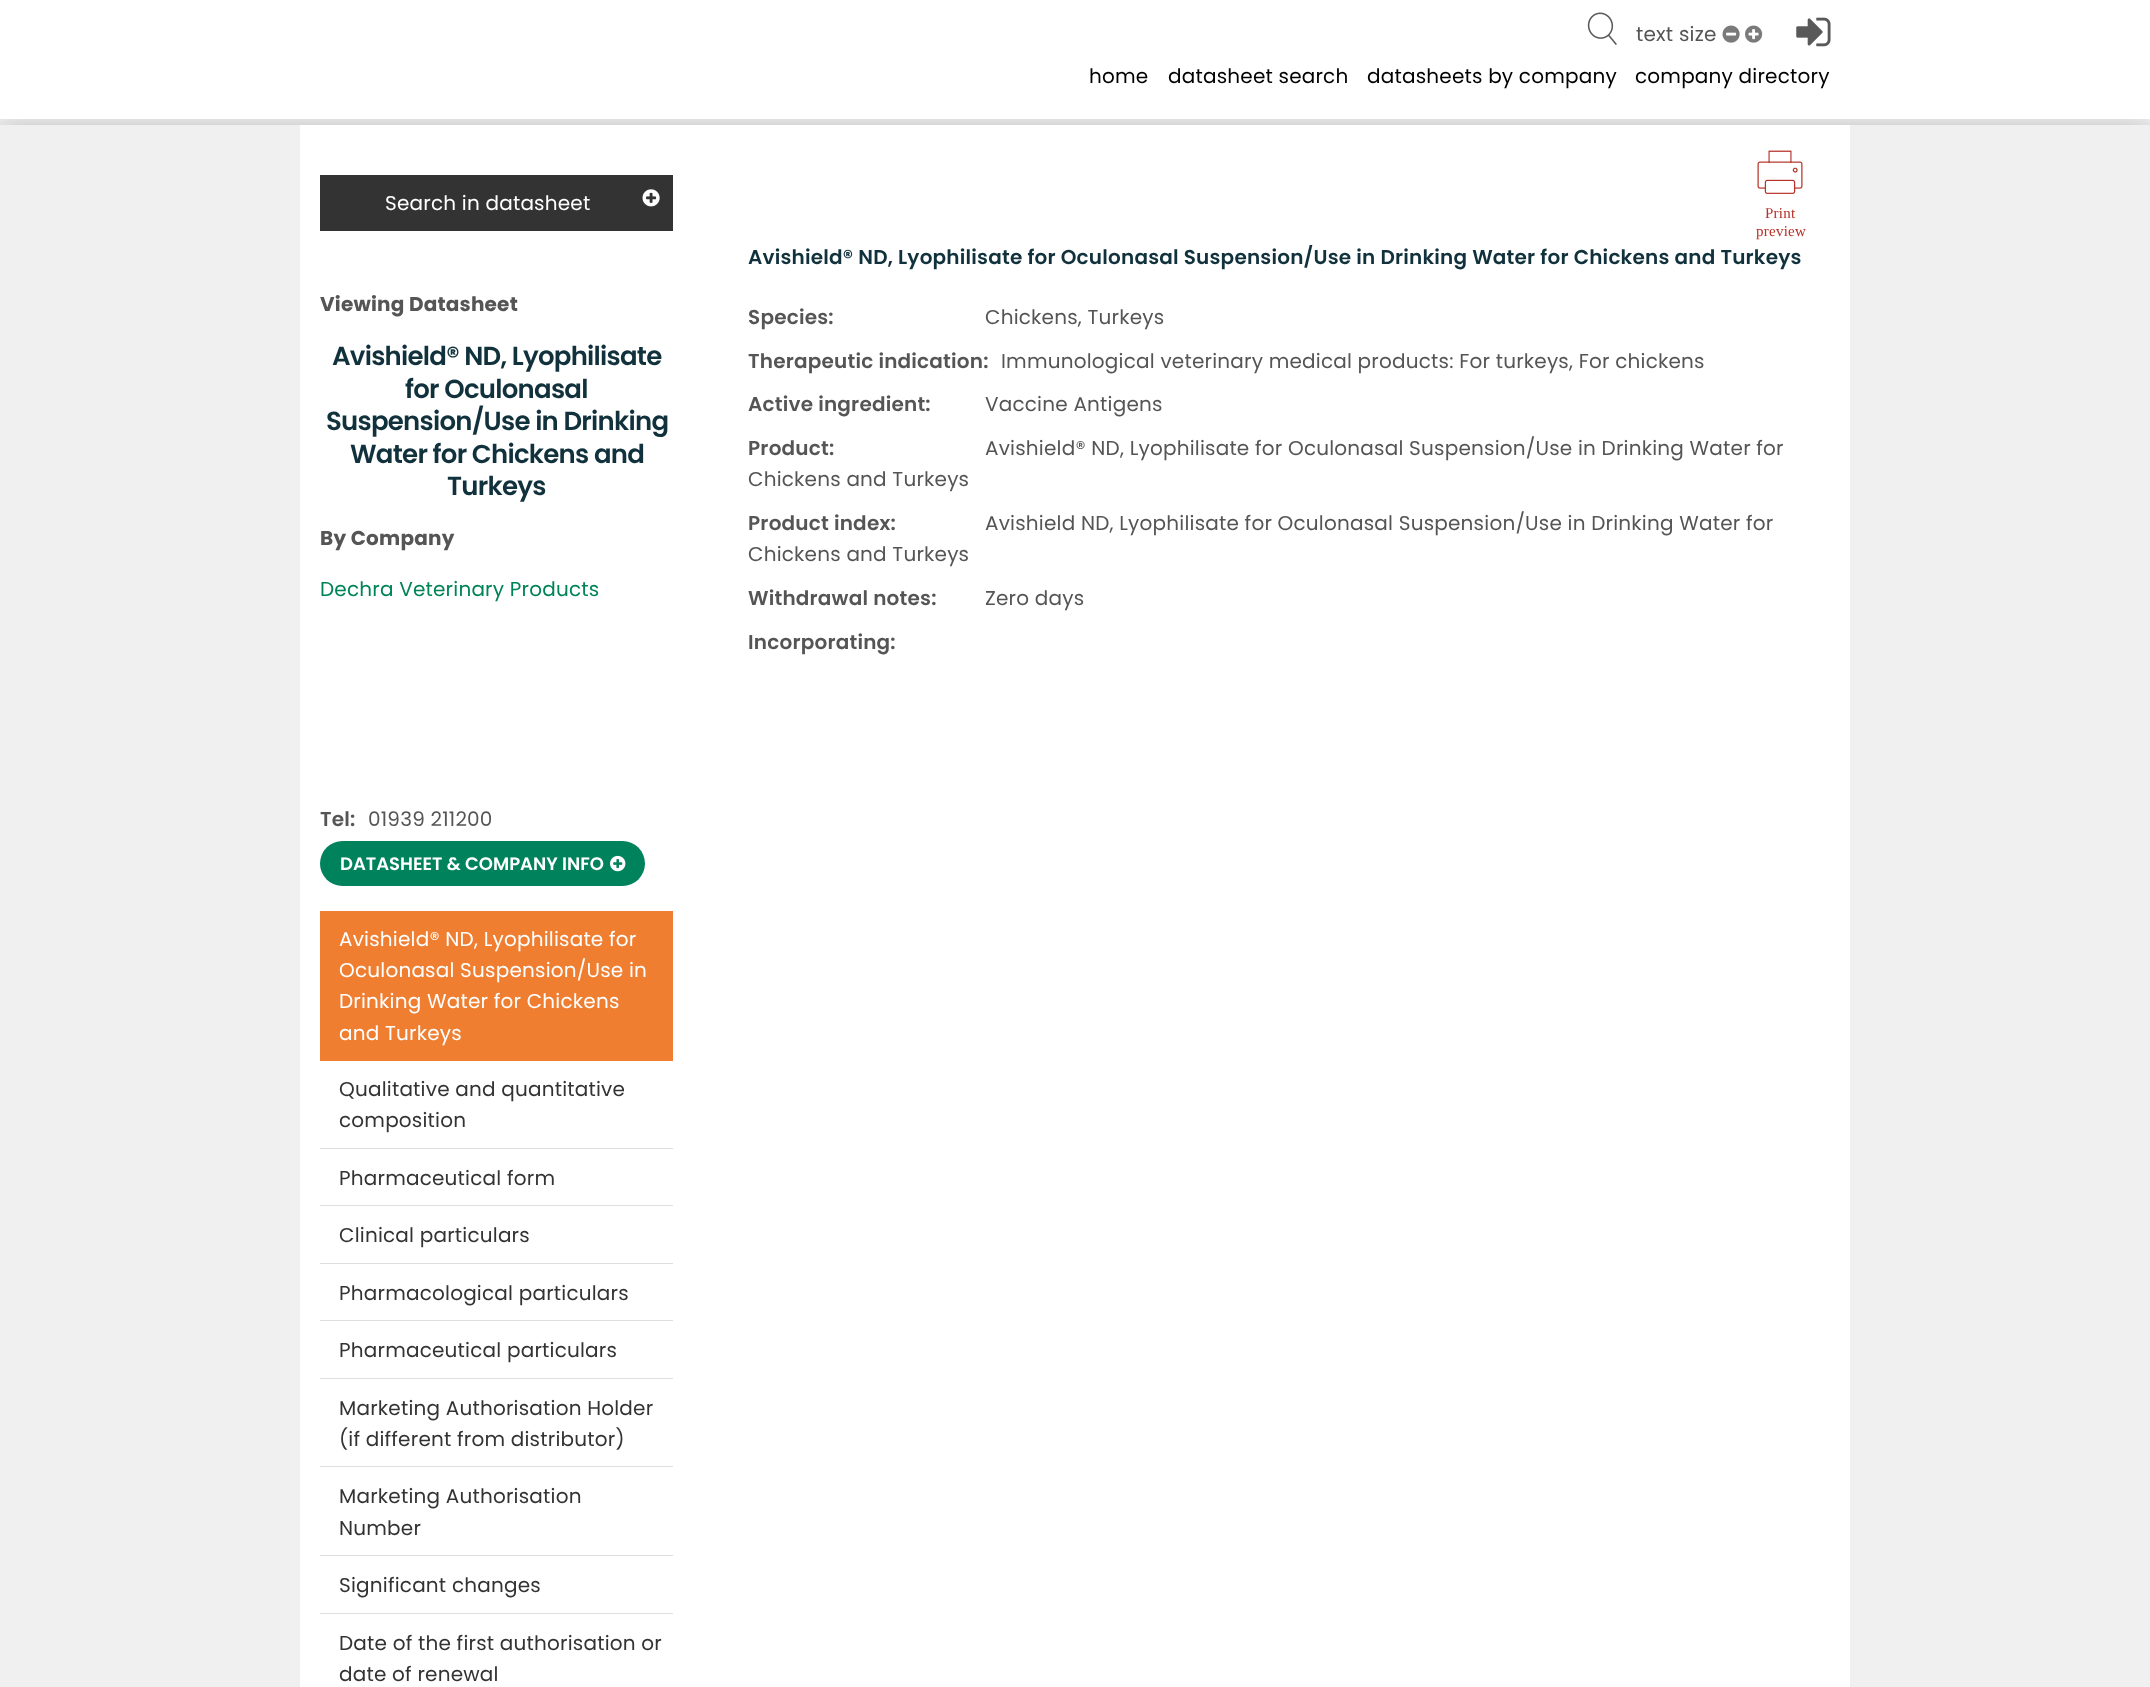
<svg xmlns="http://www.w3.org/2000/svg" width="2150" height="1687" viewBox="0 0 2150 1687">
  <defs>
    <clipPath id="clip1"><rect x="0" y="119" width="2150" height="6"/></clipPath>
  </defs>
  <rect width="100%" height="100%" fill="rgb(240,240,240)"/>
  <g clip-path="url(#clip1)">
    <rect x="0" y="125" width="2150" height="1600" fill="rgba(0,0,0,0.2)" filter="blur(12.5px)"/>
  </g>
  <rect x="0" y="0" width="2150" height="119" fill="rgb(255,255,255)"/>
  <image x="1587" y="12" width="30" height="33" href="pic1.png"/>
  <text x="1636" y="41" font-family="Poppins" font-size="20" letter-spacing="0.2" fill="rgb(85,85,85)">text size</text>
  <image x="1722" y="25" width="18" height="18" href="pic2.png"/>
  <image x="1745" y="25" width="18" height="18" href="pic3.png"/>
  <image x="1796" y="17" width="35" height="30" href="pic4.png"/>
  <g font-family="Poppins" font-size="20" letter-spacing="0.2" fill="rgb(0,0,0)">
    <text x="1089" y="83">home</text>
    <text x="1168" y="83">datasheet search</text>
    <text x="1367" y="83">datasheets by company</text>
    <text x="1635" y="83">company directory</text>
  </g>
  <rect x="300" y="125" width="1550" height="1562" fill="rgb(255,255,255)"/>
  <rect x="320" y="175" width="353" height="56" fill="rgb(51,51,51)"/>
  <text x="385" y="210" font-family="Poppins" font-size="20" letter-spacing="0.2" fill="rgb(255,255,255)">Search in datasheet</text>
  <image x="642" y="189" width="18" height="18" href="pic5.png"/>
  <text x="320" y="311" font-family="Poppins" font-size="20" font-weight="bold" letter-spacing="0.2" fill="rgb(85,85,85)">Viewing Datasheet</text>
  <g font-family="Poppins" font-size="26" font-weight="600" letter-spacing="-0.75" fill="rgb(17,50,60)">
    <text x="332" y="365">Avishield® ND, Lyophilisate</text>
    <text x="405" y="398">for Oculonasal</text>
    <text x="326" y="430">Suspension/Use in Drinking</text>
    <text x="350" y="463">Water for Chickens and</text>
    <text x="447" y="495">Turkeys</text>
  </g>
  <text x="320" y="545" font-family="Poppins" font-size="20" font-weight="bold" letter-spacing="0.2" fill="rgb(85,85,85)">By Company</text>
  <text x="320" y="596" font-family="Poppins" font-size="20" letter-spacing="0.2" fill="rgb(0,132,87)">Dechra Veterinary Products</text>
  <text x="320" y="826" font-family="Poppins" font-size="20" font-weight="600" letter-spacing="0.2" fill="rgb(85,85,85)">Tel:</text>
  <text x="368" y="826" font-family="Poppins" font-size="20" letter-spacing="0.2" fill="rgb(85,85,85)">01939 211200</text>
  <rect x="320" y="841" width="325" height="45" rx="22.5" fill="rgb(0,130,93)"/>
  <text x="340" y="870" font-family="Poppins" font-size="18" font-weight="600" fill="rgb(255,255,255)">DATASHEET &amp; COMPANY INFO</text>
  <image x="610" y="855" width="16" height="17" href="pic6.png"/>
  <rect x="320" y="911" width="353" height="150" fill="rgb(239,126,49)"/>
  <g font-family="Poppins" font-size="20" letter-spacing="0.2" fill="rgb(255,255,255)">
    <text>
      <tspan x="339" y="946">Avishield® ND, Lyophilisate for</tspan>
      <tspan x="339" y="977">Oculonasal Suspension/Use in</tspan>
      <tspan x="339" y="1008">Drinking Water for Chickens</tspan>
      <tspan x="339" y="1040">and Turkeys</tspan>
    </text>
  </g>
  <rect x="320" y="1148" width="353" height="1" fill="rgb(222,222,222)"/>
  <g font-family="Poppins" font-size="20" letter-spacing="0.2" fill="rgb(51,51,51)">
    <text>
      <tspan x="339" y="1096">Qualitative and quantitative</tspan>
      <tspan x="339" y="1127">composition</tspan>
    </text>
  </g>
  <rect x="320" y="1205" width="353" height="1" fill="rgb(222,222,222)"/>
  <text x="339" y="1185" font-family="Poppins" font-size="20" letter-spacing="0.2" fill="rgb(51,51,51)">Pharmaceutical form</text>
  <rect x="320" y="1263" width="353" height="1" fill="rgb(222,222,222)"/>
  <text x="339" y="1242" font-family="Poppins" font-size="20" letter-spacing="0.2" fill="rgb(51,51,51)">Clinical particulars</text>
  <rect x="320" y="1320" width="353" height="1" fill="rgb(222,222,222)"/>
  <text x="339" y="1300" font-family="Poppins" font-size="20" letter-spacing="0.2" fill="rgb(51,51,51)">Pharmacological particulars</text>
  <rect x="320" y="1378" width="353" height="1" fill="rgb(222,222,222)"/>
  <text x="339" y="1357" font-family="Poppins" font-size="20" letter-spacing="0.2" fill="rgb(51,51,51)">Pharmaceutical particulars</text>
  <rect x="320" y="1466" width="353" height="1" fill="rgb(222,222,222)"/>
  <g font-family="Poppins" font-size="20" letter-spacing="0.2" fill="rgb(51,51,51)">
    <text>
      <tspan x="339" y="1415">Marketing Authorisation Holder</tspan>
      <tspan x="339" y="1446">(if different from distributor)</tspan>
    </text>
  </g>
  <rect x="320" y="1555" width="353" height="1" fill="rgb(222,222,222)"/>
  <g font-family="Poppins" font-size="20" letter-spacing="0.2" fill="rgb(51,51,51)">
    <text>
      <tspan x="339" y="1503">Marketing Authorisation</tspan>
      <tspan x="339" y="1535">Number</tspan>
    </text>
  </g>
  <rect x="320" y="1613" width="353" height="1" fill="rgb(222,222,222)"/>
  <g font-family="Poppins" font-size="20" letter-spacing="0.2" fill="rgb(51,51,51)">
    <text x="339" y="1592">Significant changes</text>
    <text>
      <tspan x="339" y="1650">Date of the first authorisation or</tspan>
      <tspan x="339" y="1681">date of renewal</tspan>
    </text>
  </g>
  <image x="1757" y="150" width="46" height="44" href="pic7.png"/>
  <g font-family="Liberation Serif" font-size="15" letter-spacing="0.25" fill="rgb(182,49,40)">
    <text x="1765" y="218">Print</text>
    <text x="1756" y="236">preview</text>
  </g>
  <text x="748" y="264" font-family="Poppins" font-size="20" font-weight="600" letter-spacing="0.2" fill="rgb(17,50,60)">Avishield® ND, Lyophilisate for Oculonasal Suspension/Use in Drinking Water for Chickens and Turkeys</text>
  <text x="748" y="324" font-family="Poppins" font-size="20" font-weight="600" letter-spacing="0.2" fill="rgb(85,85,85)">Species:</text>
  <text x="985" y="324" font-family="Poppins" font-size="20" letter-spacing="0.2" fill="rgb(85,85,85)">Chickens, Turkeys</text>
  <text x="748" y="368" font-family="Poppins" font-size="20" font-weight="600" letter-spacing="0.2" fill="rgb(85,85,85)">Therapeutic indication:</text>
  <text x="1001" y="368" font-family="Poppins" font-size="20" letter-spacing="0.2" fill="rgb(85,85,85)">Immunological veterinary medical products: For turkeys, For chickens</text>
  <text x="748" y="411" font-family="Poppins" font-size="20" font-weight="600" letter-spacing="0.2" fill="rgb(85,85,85)">Active ingredient:</text>
  <text x="985" y="411" font-family="Poppins" font-size="20" letter-spacing="0.2" fill="rgb(85,85,85)">Vaccine Antigens</text>
  <text x="748" y="455" font-family="Poppins" font-size="20" font-weight="600" letter-spacing="0.2" fill="rgb(85,85,85)">Product:</text>
  <g font-family="Poppins" font-size="20" letter-spacing="0.2" fill="rgb(85,85,85)">
    <text x="985" y="455">Avishield® ND, Lyophilisate for Oculonasal Suspension/Use in Drinking Water for</text>
    <text x="748" y="486">Chickens and Turkeys</text>
  </g>
  <text x="748" y="530" font-family="Poppins" font-size="20" font-weight="600" letter-spacing="0.2" fill="rgb(85,85,85)">Product index:</text>
  <g font-family="Poppins" font-size="20" letter-spacing="0.2" fill="rgb(85,85,85)">
    <text x="985" y="530">Avishield ND, Lyophilisate for Oculonasal Suspension/Use in Drinking Water for</text>
    <text x="748" y="561">Chickens and Turkeys</text>
  </g>
  <text x="748" y="605" font-family="Poppins" font-size="20" font-weight="600" letter-spacing="0.2" fill="rgb(85,85,85)">Withdrawal notes:</text>
  <text x="985" y="605" font-family="Poppins" font-size="20" letter-spacing="0.2" fill="rgb(85,85,85)">Zero days</text>
  <text x="748" y="649" font-family="Poppins" font-size="20" font-weight="600" letter-spacing="0.2" fill="rgb(85,85,85)">Incorporating:</text>
</svg>
